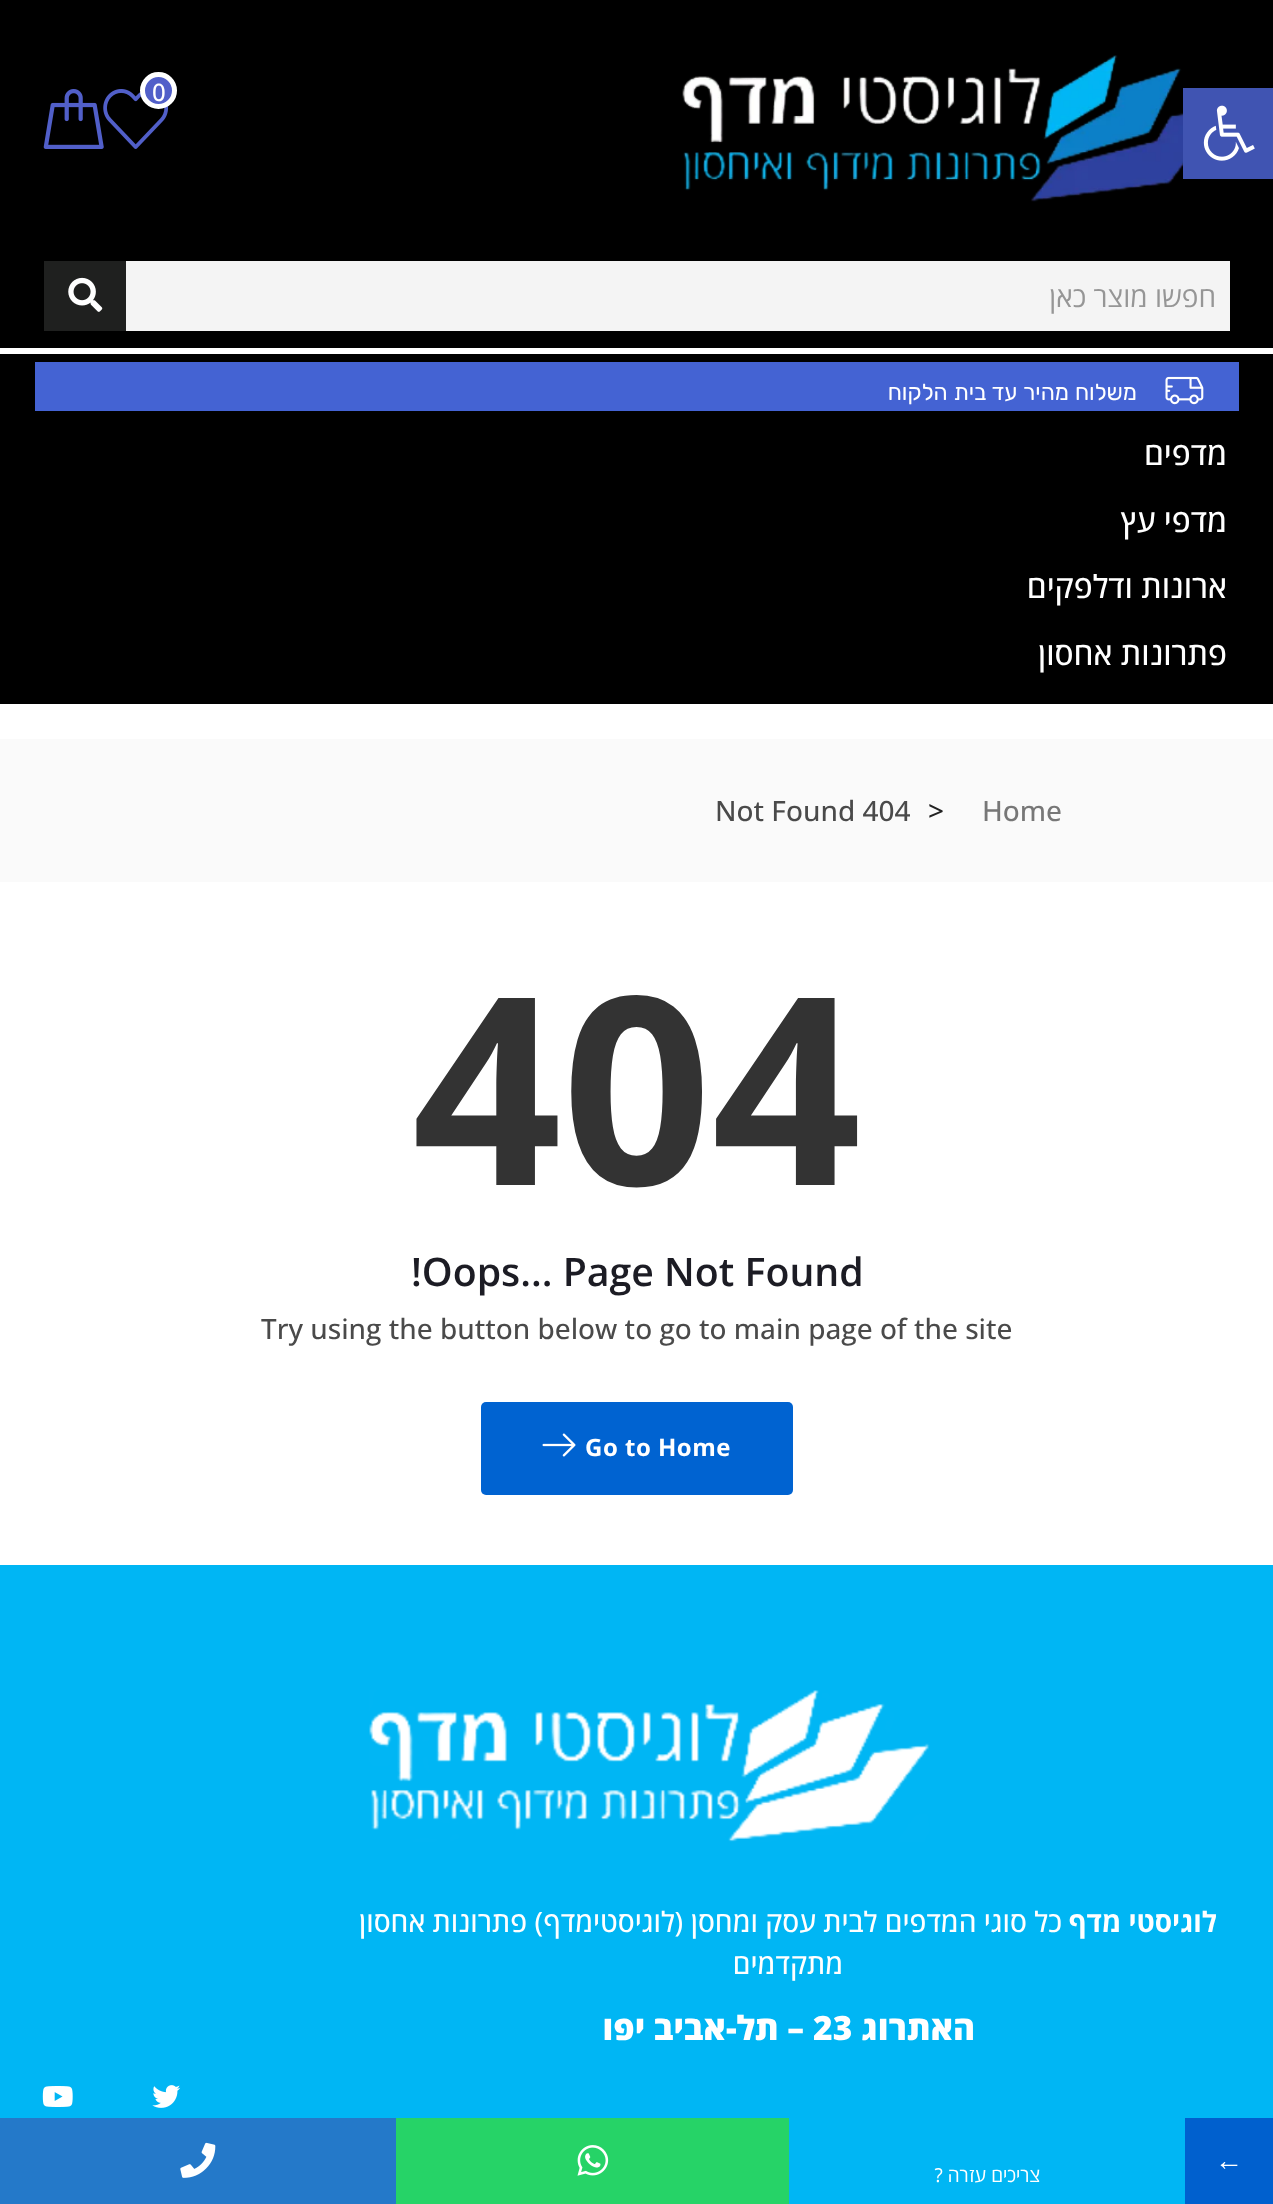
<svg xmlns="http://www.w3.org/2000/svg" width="1273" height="2204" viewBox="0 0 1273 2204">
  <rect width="100%" height="100%" fill="rgb(255,255,255)"/>
  <rect x="0" y="0" width="1273" height="348" fill="rgb(0,0,0)"/>
  <rect x="1183" y="88" width="90" height="91" fill="rgb(64,84,178)"/>
  <image x="1203" y="105" width="52" height="56" href="pic1.png"/>
  <image x="682" y="55" width="501" height="147" href="pic2.png"/>
  <image x="103" y="89" width="66" height="60" href="pic3.png"/>
  <circle cx="158.5" cy="90.5" r="16" fill="rgb(81,95,201)" stroke="rgb(255,255,255)" stroke-width="5"/>
  <text x="152" y="101" font-family="Open Sans" font-size="24" font-weight="500" fill="rgb(255,255,255)">0</text>
  <image x="43" y="89" width="61" height="60" href="pic4.png"/>
  <rect x="126" y="261" width="1104" height="70" fill="rgb(244,244,244)"/>
  <text x="1216" y="307" font-family="Open Sans" font-size="28" direction="rtl" fill="rgb(150,150,150)">חפשו מוצר כאן</text>
  <rect x="44" y="261" width="82" height="70" fill="rgb(31,32,31)"/>
  <image x="68" y="277" width="35" height="35" href="pic5.png"/>
  <rect x="0" y="354" width="1273" height="350" fill="rgb(0,0,0)"/>
  <rect x="35" y="362" width="1204" height="49" fill="rgb(68,99,211)"/>
  <image x="1165" y="376" width="39" height="29" href="pic6.png"/>
  <text x="1137" y="400" word-spacing="0.5" font-family="Rubik" font-size="22.75" direction="rtl" fill="rgb(255,255,255)">משלוח מהיר עד בית הלקוח</text>
  <g font-family="'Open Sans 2'" font-size="31.5" font-weight="500" direction="rtl" fill="rgb(255,255,255)">
    <text x="1227" y="465">מדפים</text>
    <text x="1227" y="532">מדפי עץ</text>
    <text x="1227" y="598">ארונות ודלפקים</text>
    <text x="1227" y="665">פתרונות אחסון</text>
  </g>
  <rect x="0" y="739" width="1273" height="143" fill="rgb(250,250,250)"/>
  <text x="982" y="821" font-family="Open Sans" font-size="28" font-weight="500" fill="rgb(119,119,119)">Home</text>
  <text x="928" y="821" font-family="Open Sans" font-size="28" font-weight="500" fill="rgb(34,34,34)">&gt;</text>
  <text x="715" y="821" font-family="Open Sans" font-size="28" font-weight="500" fill="rgb(74,74,74)">Not Found 404</text>
  <text x="412" y="1185" font-family="Open Sans" font-size="262" font-weight="bold" fill="rgb(51,51,51)">404</text>
  <text x="411" y="1286" font-family="Open Sans" font-size="39.25" font-weight="600" fill="rgb(28,28,36)">!Oops... Page Not Found</text>
  <text x="261" y="1339" font-family="Open Sans" font-size="28" font-weight="500" fill="rgb(74,74,74)">Try using the button below to go to main page of the site</text>
  <rect x="481" y="1402" width="312" height="93" rx="5" fill="rgb(0,99,209)"/>
  <text x="585" y="1456" font-family="Open Sans" font-size="24" font-weight="bold" letter-spacing="0.5" fill="rgb(255,255,255)">Go to Home</text>
  <image x="542" y="1433" width="34" height="24" href="pic7.png"/>
  <rect x="0" y="1565" width="1273" height="553" fill="rgb(0,182,244)"/>
  <image x="369" y="1690" width="561" height="152" href="pic8.png"/>
  <text x="1217" y="1932" font-family="Open Sans" font-size="28" font-weight="bold" direction="rtl" fill="rgb(255,255,255)">לוגיסטי מדף</text>
  <text x="1062" y="1932" font-family="'Open Sans 2'" font-size="28" font-weight="500" direction="rtl" fill="rgb(255,255,255)">כל סוגי המדפים לבית עסק ומחסן</text>
  <text x="683" y="1932" font-family="Open Sans" font-size="28" font-weight="500" direction="rtl" fill="rgb(255,255,255)">(</text>
  <text x="675" y="1932" font-family="'Open Sans 2'" font-size="28" font-weight="500" direction="rtl" fill="rgb(255,255,255)">לוגיסטימדף</text>
  <text x="543" y="1932" font-family="Open Sans" font-size="28" font-weight="500" direction="rtl" fill="rgb(255,255,255)">)</text>
  <g font-family="'Open Sans 2'" font-size="28" font-weight="500" direction="rtl" fill="rgb(255,255,255)">
    <text x="527" y="1932">פתרונות אחסון</text>
    <text x="843" y="1974">מתקדמים</text>
  </g>
  <text x="975" y="2040" font-family="Open Sans" font-size="33.5" font-weight="800" direction="rtl" fill="rgb(255,255,255)">האתרוג</text>
  <text x="813" y="2040" font-family="Open Sans" font-size="33.5" font-weight="800" fill="rgb(255,255,255)">23</text>
  <text x="804" y="2040" font-family="Open Sans" font-size="33.5" font-weight="800" direction="rtl" fill="rgb(255,255,255)">– תל-אביב יפו</text>
  <image x="152" y="2085" width="29" height="23" href="pic9.png"/>
  <image x="42" y="2086" width="31" height="21" href="pic10.png"/>
  <rect x="1185" y="2118" width="88" height="86" fill="rgb(0,96,206)"/>
  <text x="1215" y="2170" font-family="Liberation Serif" font-size="28" fill="rgb(255,255,255)">←</text>
  <rect x="396" y="2118" width="393" height="86" fill="rgb(38,211,103)"/>
  <image x="577" y="2145" width="32" height="31" href="pic11.png"/>
  <rect x="0" y="2118" width="396" height="86" fill="rgb(36,121,201)"/>
  <image x="180" y="2142" width="36" height="36" href="pic12.png"/>
  <rect x="789" y="2118" width="396" height="86" fill="rgb(0,182,244)"/>
  <text x="1040" y="2182" font-family="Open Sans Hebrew" font-size="19.25" direction="rtl" fill="rgb(255,255,255)">צריכים עזרה ?</text>
</svg>
